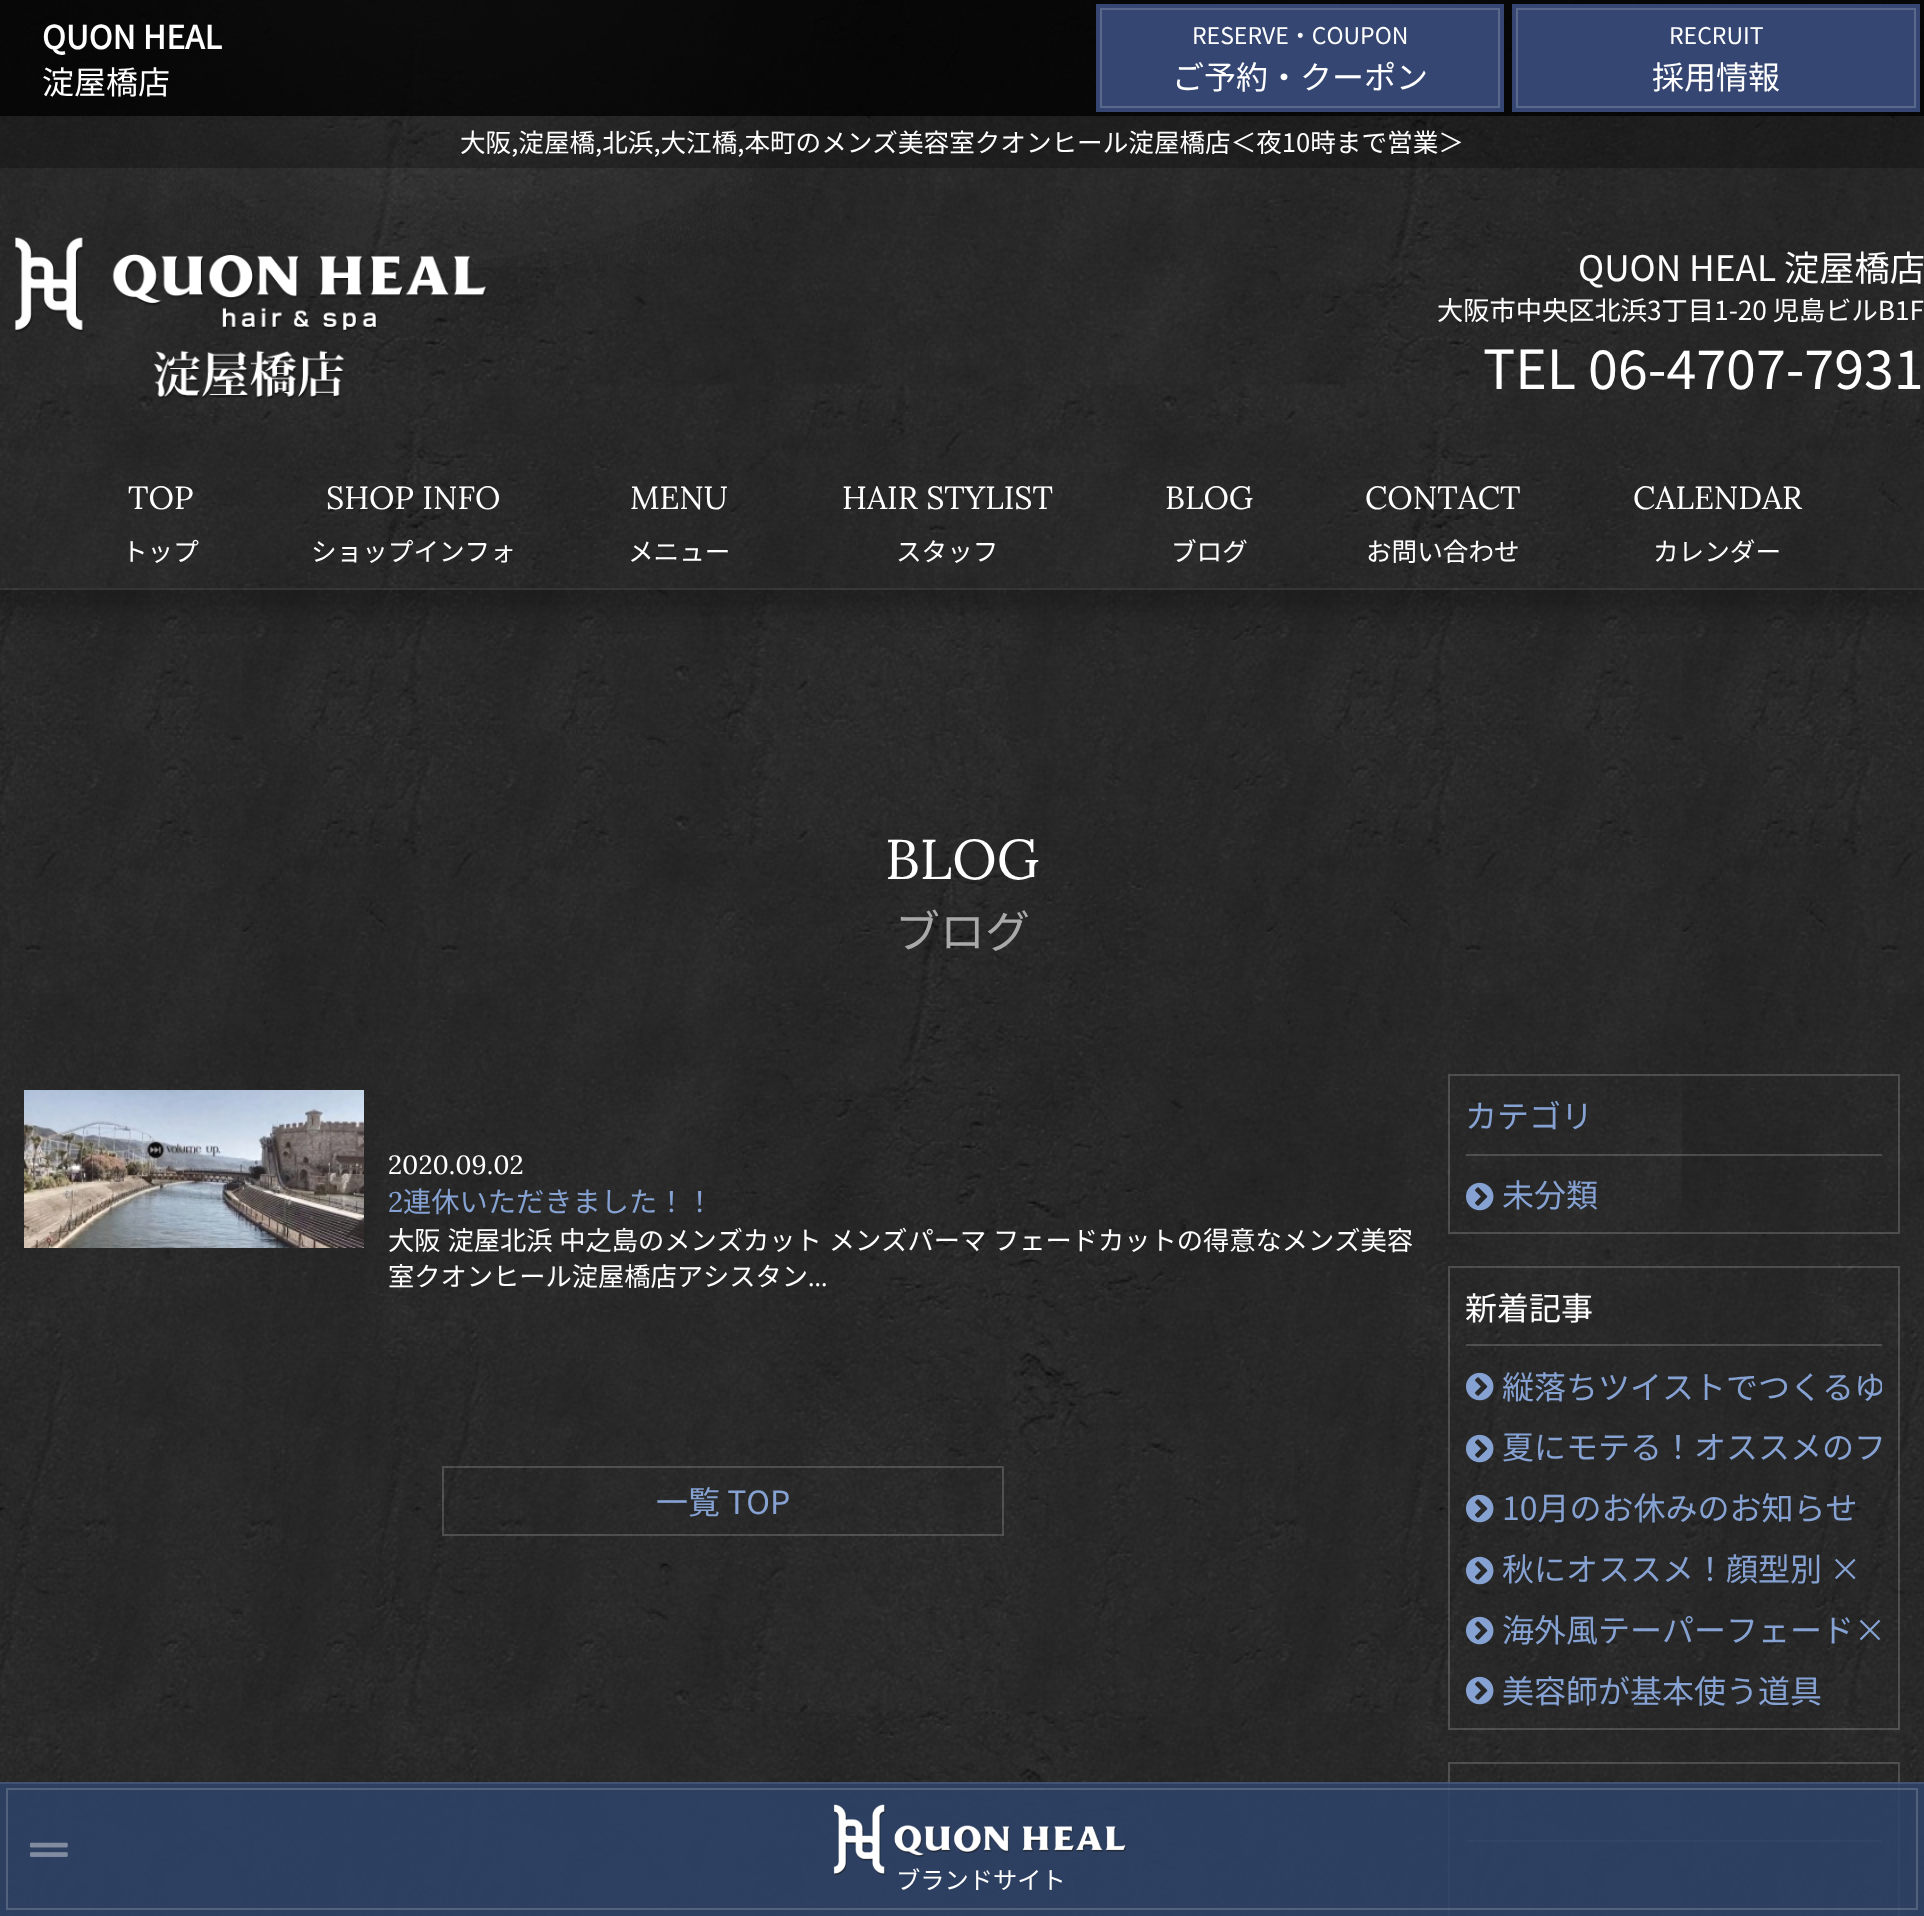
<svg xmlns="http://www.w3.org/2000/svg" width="1924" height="1916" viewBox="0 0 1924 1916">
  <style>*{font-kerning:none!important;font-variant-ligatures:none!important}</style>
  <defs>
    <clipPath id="clip1"><rect x="1466" y="1362" width="416" height="46"/></clipPath>
  </defs>
  <rect width="100%" height="100%" fill="rgb(255,255,255)"/>
  <image x="0" y="588" width="1924" height="1328" href="pic1.png"/>
  <rect x="-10" y="0" width="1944" height="610" fill="rgba(10,10,10,0.3)" filter="blur(11px)"/>
  <image x="0" y="0" width="1924" height="588" href="pic2.png"/>
  <image x="69" y="0" width="786" height="267" href="pic3.png"/>
  <rect x="0" y="0" width="1924" height="116" fill="rgba(0,0,0,0.82)"/>
  <text x="42" y="49" font-family="Noto Sans JP" font-size="32" font-weight="bold" fill="rgb(255,255,255)">QUON HEAL</text>
  <text x="42" y="94" font-family="Noto Sans JP" font-size="32" font-weight="100" fill="rgb(255,255,255)">淀屋橋店</text>
  <rect x="1096" y="4" width="408" height="108" fill="rgba(54,73,118,0.96)"/>
  <rect x="1101" y="9" width="398" height="98" fill="none" stroke="rgb(89,104,139)" stroke-width="2"/>
  <text x="1192" y="44" font-family="Noto Sans JP" font-size="23" font-weight="100" fill="rgb(255,255,255)">RESERVE・COUPON</text>
  <text x="1172" y="89" font-family="Noto Sans JP" font-size="32" font-weight="100" fill="rgb(255,255,255)">ご予約・クーポン</text>
  <rect x="1512" y="4" width="408" height="108" fill="rgba(54,73,118,0.96)"/>
  <rect x="1517" y="9" width="398" height="98" fill="none" stroke="rgb(89,104,139)" stroke-width="2"/>
  <text x="1669" y="44" font-family="Noto Sans JP" font-size="23" font-weight="100" fill="rgb(255,255,255)">RECRUIT</text>
  <text x="1652" y="89" font-family="Noto Sans JP" font-size="32" font-weight="100" fill="rgb(255,255,255)">採用情報</text>
  <rect x="0" y="588" width="1924" height="2" fill="rgba(255,255,255,0.1)"/>
  <rect x="0" y="116" width="1924" height="52" fill="rgba(10,10,10,0.32)"/>
  <text x="460" y="152" font-family="Noto Sans JP" font-size="25.6" font-weight="100" fill="rgb(255,255,255)">大阪,淀屋橋,北浜,大江橋,本町のメンズ美容室クオンヒール淀屋橋店＜夜10時まで営業＞</text>
  <image x="15" y="237" width="472" height="162" href="pic4.png"/>
  <text x="1578" y="281" font-family="Noto Sans JP" font-size="35.25" font-weight="100" fill="rgb(255,255,255)">QUON HEAL 淀屋橋店</text>
  <text x="1437" y="320" font-family="Noto Sans JP" font-size="26.25" font-weight="100" fill="rgb(255,255,255)">大阪市中央区北浜3丁目1-20 児島ビルB1F</text>
  <text x="1483" y="389" font-family="Noto Sans JP" font-size="53.75" font-weight="100" fill="rgb(255,255,255)">TEL 06-4707-7931</text>
  <text x="128" y="509" font-family="Lora" font-size="32" fill="rgb(255,255,255)">TOP</text>
  <text x="122" y="561" font-family="Noto Sans JP" font-size="25.6" font-weight="100" fill="rgb(255,255,255)">トップ</text>
  <text x="326" y="509" font-family="Lora" font-size="32" fill="rgb(255,255,255)">SHOP INFO</text>
  <text x="311" y="561" font-family="Noto Sans JP" font-size="25.6" font-weight="100" fill="rgb(255,255,255)">ショップインフォ</text>
  <text x="630" y="509" font-family="Lora" font-size="32" fill="rgb(255,255,255)">MENU</text>
  <text x="628" y="561" font-family="Noto Sans JP" font-size="25.6" font-weight="100" fill="rgb(255,255,255)">メニュー</text>
  <text x="842" y="509" font-family="Lora" font-size="32" fill="rgb(255,255,255)">HAIR STYLIST</text>
  <text x="896" y="561" font-family="Noto Sans JP" font-size="25.6" font-weight="100" fill="rgb(255,255,255)">スタッフ</text>
  <text x="1165" y="509" font-family="Lora" font-size="32" fill="rgb(255,255,255)">BLOG</text>
  <text x="1171" y="561" font-family="Noto Sans JP" font-size="25.6" font-weight="100" fill="rgb(255,255,255)">ブログ</text>
  <text x="1365" y="509" font-family="Lora" font-size="32" fill="rgb(255,255,255)">CONTACT</text>
  <text x="1366" y="561" font-family="Noto Sans JP" font-size="25.6" font-weight="100" fill="rgb(255,255,255)">お問い合わせ</text>
  <text x="1633" y="509" font-family="Lora" font-size="32" fill="rgb(255,255,255)">CALENDAR</text>
  <text x="1653" y="561" font-family="Noto Sans JP" font-size="25.6" font-weight="100" fill="rgb(255,255,255)">カレンダー</text>
  <text x="885" y="879" font-family="Lora" font-size="56" fill="rgb(255,255,255)">BLOG</text>
  <text x="895" y="948" font-family="Noto Sans JP" font-size="45" font-weight="100" fill="rgb(169,169,169)">ブログ</text>
  <image x="24" y="1090" width="340" height="158" href="pic5.png"/>
  <text x="388" y="1174" font-family="Lora" font-size="26.25" fill="rgb(255,255,255)">2020.09.02</text>
  <text x="388" y="1212" font-family="Lora" font-size="28.25" fill="rgb(134,162,211)">2</text>
  <text x="403" y="1212" font-family="Noto Sans JP" font-size="28.25" font-weight="100" fill="rgb(134,162,211)">連休いただきました！！</text>
  <g font-family="Noto Sans JP" font-size="26.25" font-weight="100" fill="rgb(255,255,255)">
    <text>
      <tspan x="388" y="1250" word-spacing="1">大阪 淀屋北浜 中之島のメンズカット メンズパーマ フェードカットの得意なメンズ美容</tspan>
      <tspan x="388" y="1286">室クオンヒール淀屋橋店アシスタン</tspan>
    </text>
  </g>
  <text x="808" y="1286" font-family="Lora" font-size="26.25" fill="rgb(255,255,255)">...</text>
  <rect x="443" y="1467" width="560" height="68" fill="none" stroke="rgba(255,255,255,0.18)" stroke-width="2"/>
  <text x="656" y="1514" font-family="Noto Sans JP" font-size="32" font-weight="100" fill="rgb(134,162,211)">一覧 TOP</text>
  <rect x="1449" y="1075" width="450" height="158" fill="none" stroke="rgba(255,255,255,0.18)" stroke-width="2"/>
  <rect x="1466" y="1154" width="416" height="2" fill="rgba(255,255,255,0.18)"/>
  <text x="1465" y="1128" font-family="Noto Sans JP" font-size="32" font-weight="100" fill="rgb(134,162,211)">カテゴリ</text>
  <image x="1466" y="1182" width="28" height="29" href="pic6.png"/>
  <text x="1502" y="1207" font-family="Noto Sans JP" font-size="32" font-weight="100" fill="rgb(134,162,211)">未分類</text>
  <rect x="1449" y="1267" width="450" height="462" fill="none" stroke="rgba(255,255,255,0.18)" stroke-width="2"/>
  <rect x="1466" y="1344" width="416" height="2" fill="rgba(255,255,255,0.18)"/>
  <text x="1465" y="1320" font-family="Noto Sans JP" font-size="32" font-weight="100" fill="rgb(255,255,255)">新着記事</text>
  <image x="1466" y="1372" width="28" height="29" href="pic7.png"/>
  <g clip-path="url(#clip1)">
    <text x="1502" y="1399" font-family="Noto Sans JP" font-size="32" font-weight="100" fill="rgb(134,162,211)">縦落ちツイストでつくるゆ</text>
  </g>
  <image x="1466" y="1434" width="28" height="29" href="pic8.png"/>
  <text x="1502" y="1459" font-family="Noto Sans JP" font-size="32" font-weight="100" fill="rgb(134,162,211)">夏にモテる！オススメのフ</text>
  <image x="1466" y="1494" width="28" height="29" href="pic9.png"/>
  <text x="1502" y="1520" font-family="Noto Sans JP" font-size="32" font-weight="100" fill="rgb(134,162,211)">10月のお休みのお知らせ</text>
  <image x="1466" y="1556" width="28" height="29" href="pic10.png"/>
  <text x="1502" y="1581" font-family="Noto Sans JP" font-size="32" font-weight="100" fill="rgb(134,162,211)">秋にオススメ！顔型別 ×</text>
  <image x="1466" y="1616" width="28" height="29" href="pic11.png"/>
  <text x="1502" y="1642" font-family="Noto Sans JP" font-size="32" font-weight="100" fill="rgb(134,162,211)">海外風テーパーフェード×</text>
  <image x="1466" y="1676" width="28" height="29" href="pic12.png"/>
  <text x="1502" y="1703" font-family="Noto Sans JP" font-size="32" font-weight="100" fill="rgb(134,162,211)">美容師が基本使う道具</text>
  <rect x="1449" y="1763" width="450" height="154" fill="none" stroke="rgba(255,255,255,0.18)" stroke-width="2"/>
  <rect x="1466" y="1840" width="416" height="2" fill="rgba(255,255,255,0.18)"/>
  <rect x="0" y="1782" width="1924" height="134" fill="rgba(46,67,105,0.88)"/>
  <rect x="0" y="1782" width="1924" height="2" fill="rgba(255,255,255,0.1)"/>
  <rect x="7" y="1789" width="1910" height="120" fill="none" stroke="rgba(255,255,255,0.18)" stroke-width="2"/>
  <image x="30" y="1842" width="38" height="15" href="pic13.png"/>
  <image x="833" y="1804" width="293" height="71" href="pic14.png"/>
  <text x="896" y="1889" font-family="Noto Sans JP" font-size="24.25" font-weight="100" fill="rgb(255,255,255)">ブランドサイト</text>
</svg>
